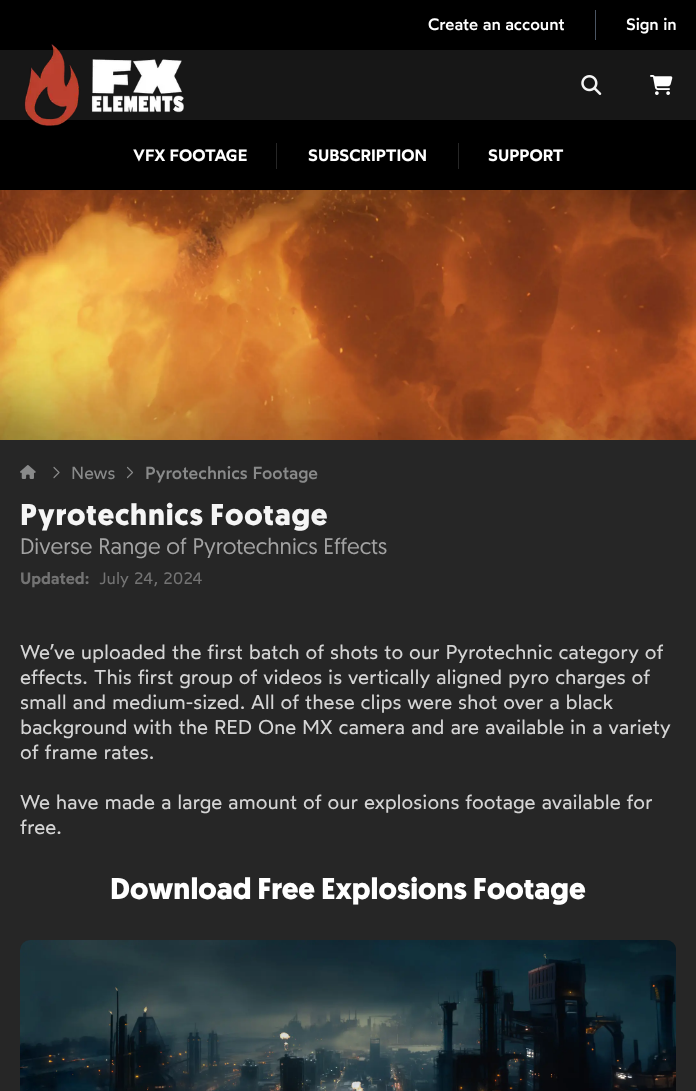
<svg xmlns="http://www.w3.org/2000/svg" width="696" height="1091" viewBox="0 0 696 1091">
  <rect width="100%" height="100%" fill="rgb(255,255,255)"/>
  <rect x="0" y="0" width="696" height="50" fill="rgb(0,0,0)"/>
  <text x="428" y="30" font-family="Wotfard" font-size="16.5" font-weight="500" fill="rgb(255,255,255)">Create an account</text>
  <rect x="595" y="10" width="1" height="30" fill="rgb(75,85,99)"/>
  <text x="626" y="30" font-family="Wotfard" font-size="16.5" font-weight="500" fill="rgb(255,255,255)">Sign in</text>
  <rect x="0" y="50" width="696" height="70" fill="rgb(23,23,23)"/>
  <rect x="0" y="120" width="696" height="70" fill="rgb(0,0,0)"/>
  <image x="24" y="44" width="160" height="82" href="pic1.png"/>
  <image x="581" y="75" width="21" height="20" href="pic2.png"/>
  <image x="650" y="75" width="23" height="20" href="pic3.png"/>
  <text x="133" y="161" font-family="Wotfard" font-size="16.5" font-weight="600" fill="rgb(255,255,255)">VFX FOOTAGE</text>
  <rect x="276" y="143" width="1" height="26" fill="rgb(38,38,38)"/>
  <text x="308" y="161" font-family="Wotfard" font-size="16.5" font-weight="600" fill="rgb(255,255,255)">SUBSCRIPTION</text>
  <rect x="458" y="143" width="1" height="26" fill="rgb(38,38,38)"/>
  <text x="488" y="161" font-family="Wotfard" font-size="16.5" font-weight="600" fill="rgb(255,255,255)">SUPPORT</text>
  <image x="0" y="190" width="696" height="250" href="pic4.png"/>
  <rect x="0" y="440" width="696" height="651" fill="rgb(38,38,38)"/>
  <image x="20" y="465" width="16" height="14" href="pic5.png"/>
  <path d="M54 477.5L59 472.5L54 467.5" fill="none" stroke="rgb(137,138,138)" stroke-width="1.2" stroke-linecap="round" stroke-linejoin="round"/>
  <text x="71" y="479" font-family="Wotfard" font-size="17.5" fill="rgb(137,138,138)">News</text>
  <path d="M127.5 477.5L132.5 472.5L127.5 467.5" fill="none" stroke="rgb(137,138,138)" stroke-width="1.2" stroke-linecap="round" stroke-linejoin="round"/>
  <text x="145" y="479" font-family="Wotfard" font-size="17.5" font-weight="500" fill="rgb(137,138,138)">Pyrotechnics Footage</text>
  <text x="20" y="525" font-family="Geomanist" font-size="30" font-weight="bold" letter-spacing="0.75" fill="rgb(245,245,245)">Pyrotechnics Footage</text>
  <text x="20" y="554" font-family="Geomanist" font-size="22.5" fill="rgb(163,163,163)">Diverse Range of Pyrotechnics Effects</text>
  <text x="20" y="584" font-family="Wotfard" font-size="16.5" font-weight="600" fill="rgb(115,115,115)">Updated:</text>
  <text x="99" y="584" font-family="Wotfard" font-size="16.5" fill="rgb(115,115,115)">July 24, 2024</text>
  <g font-family="Wotfard" font-size="20" fill="rgb(212,212,212)">
    <text>
      <tspan x="20" y="659">We’ve uploaded the first batch of shots to our Pyrotechnic category of</tspan>
      <tspan x="20" y="684">effects. This first group of videos is vertically aligned pyro charges of</tspan>
      <tspan x="20" y="709">small and medium-sized. All of these clips were shot over a black</tspan>
      <tspan x="20" y="734">background with the RED One MX camera and are available in a variety</tspan>
      <tspan x="20" y="759">of frame rates.</tspan>
    </text>
    <text>
      <tspan x="20" y="809">We have made a large amount of our explosions footage available for</tspan>
      <tspan x="20" y="834">free.</tspan>
    </text>
  </g>
  <text x="110" y="899" font-family="Geomanist" font-size="30" font-weight="bold" fill="rgb(255,255,255)">Download Free Explosions Footage</text>
  <image x="20" y="940" width="656" height="151" href="pic6.png"/>
</svg>
